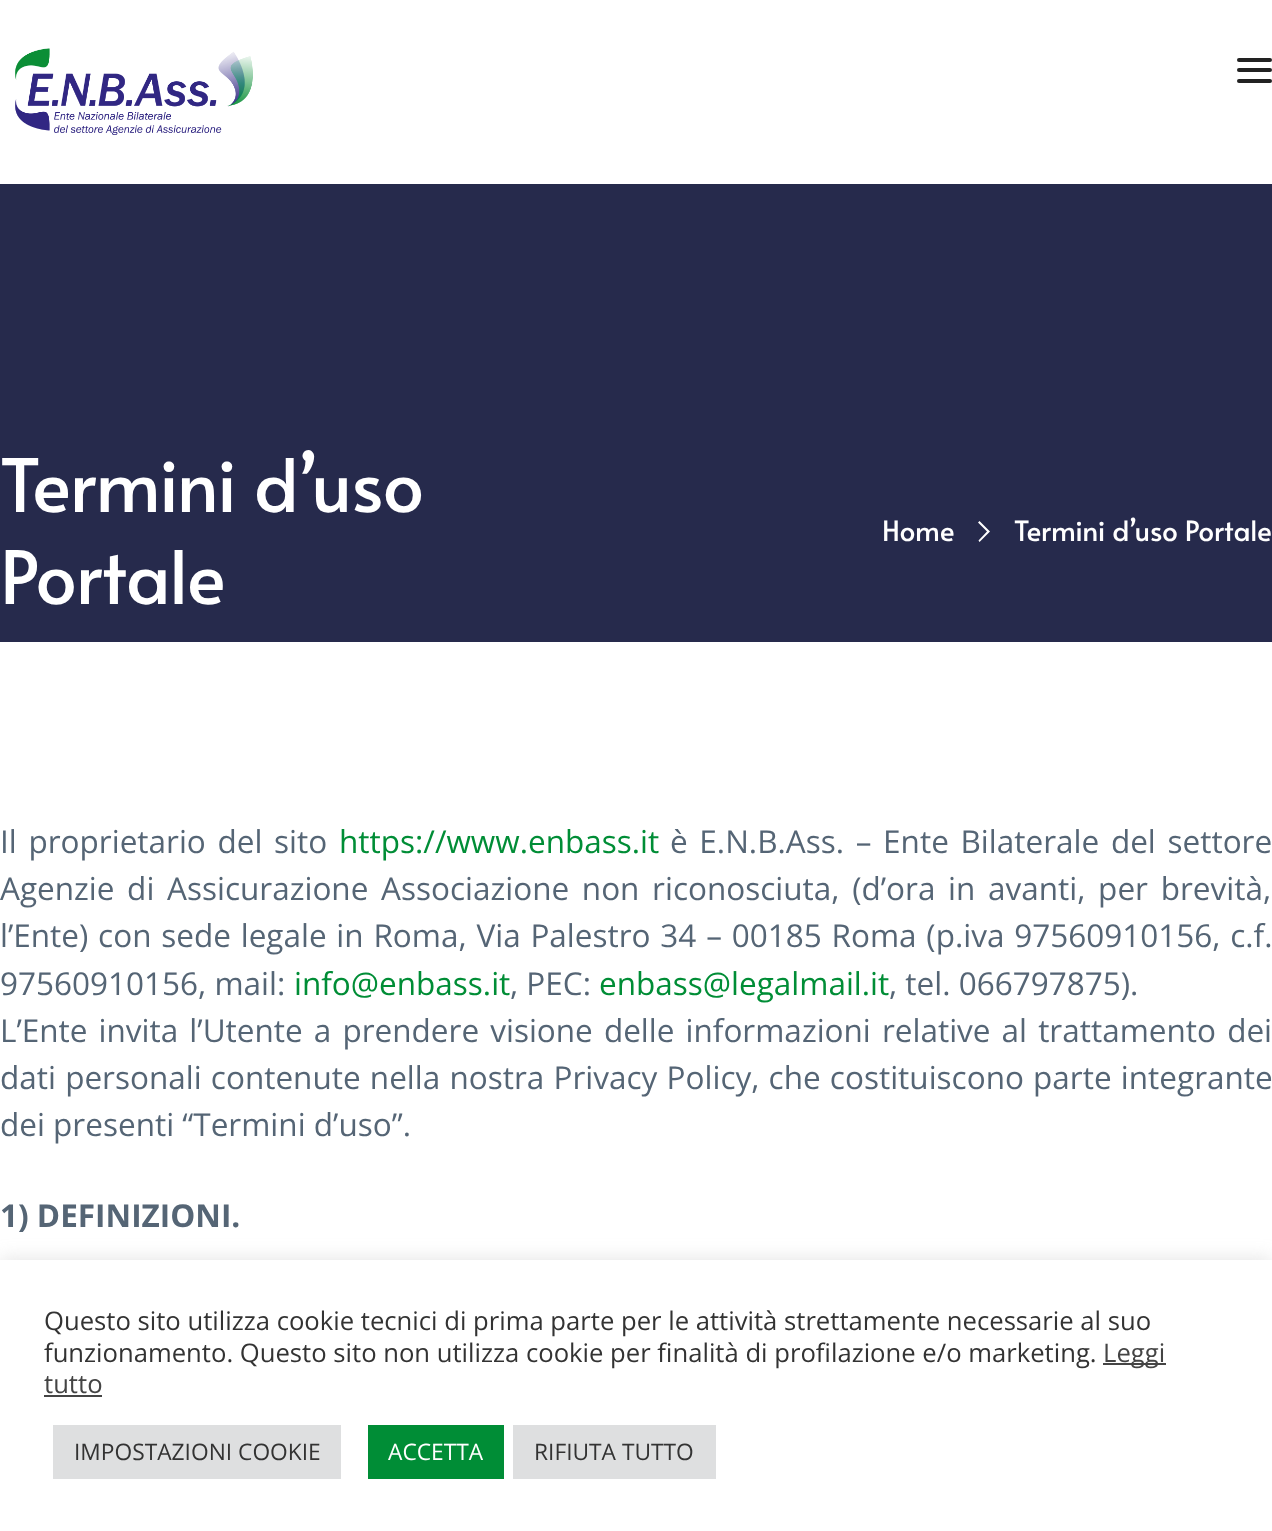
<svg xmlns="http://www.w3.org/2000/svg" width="1272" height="1531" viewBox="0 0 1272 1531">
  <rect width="100%" height="100%" fill="rgb(255,255,255)"/>
  <image x="15" y="48" width="238" height="87" href="pic1.png"/>
  <rect x="1237" y="58" width="35" height="4" rx="2" fill="rgb(34,34,34)"/>
  <rect x="1237" y="68" width="35" height="4" rx="2" fill="rgb(34,34,34)"/>
  <rect x="1237" y="79" width="35" height="4" rx="2" fill="rgb(34,34,34)"/>
  <rect x="0" y="184" width="1272" height="458" fill="rgb(38,42,76)"/>
  <g font-family="Alata" font-size="73.5" letter-spacing="-0.5" fill="rgb(255,255,255)">
    <text>
      <tspan x="0" y="512">Termini d’uso</tspan>
      <tspan x="0" y="604">Portale</tspan>
    </text>
  </g>
  <text x="882" y="541" font-family="Alata" font-size="28" fill="rgb(255,255,255)">Home</text>
  <path d="M979.5 521L978 522.5L987 531.5L978.5 540.5L979.5 542L990 531.5Z" fill="rgb(255,255,255)"/>
  <text x="1014" y="541" font-family="Alata" font-size="28" fill="rgb(255,255,255)">Termini d’uso Portale</text>
  <text x="0" y="853" word-spacing="3.5" font-family="Open Sans" font-size="31.5" fill="rgb(85,101,117)">Il proprietario del sito</text>
  <text x="339" y="853" font-family="Open Sans" font-size="31.5" fill="rgb(0,141,54)">https://www.enbass.it</text>
  <g font-family="Open Sans" font-size="31.5" fill="rgb(85,101,117)">
    <text x="670" y="853" word-spacing="3.5">è E.N.B.Ass. – Ente Bilaterale del settore</text>
    <text>
      <tspan x="0" y="900" word-spacing="4.5">Agenzie di Assicurazione Associazione non riconosciuta, (d’ora in avanti, per brevità,</tspan>
      <tspan x="0" y="947" word-spacing="1.6">l’Ente) con sede legale in Roma, Via Palestro 34 – 00185 Roma (p.iva 97560910156, c.f.</tspan>
      <tspan x="0" y="995">97560910156, mail:</tspan>
    </text>
  </g>
  <text x="294" y="995" font-family="Open Sans" font-size="31.5" fill="rgb(0,141,54)">info@enbass.it</text>
  <text x="510" y="995" font-family="Open Sans" font-size="31.5" fill="rgb(85,101,117)">, PEC:</text>
  <text x="599" y="995" font-family="Open Sans" font-size="31.5" fill="rgb(0,141,54)">enbass@legalmail.it</text>
  <g font-family="Open Sans" font-size="31.5" fill="rgb(85,101,117)">
    <text x="889" y="995">, tel. 066797875).</text>
    <text>
      <tspan x="0" y="1042" word-spacing="2.9">L’Ente invita l’Utente a prendere visione delle informazioni relative al trattamento dei</tspan>
      <tspan x="0" y="1089" word-spacing="1">dati personali contenute nella nostra Privacy Policy, che costituiscono parte integrante</tspan>
      <tspan x="0" y="1136">dei presenti “Termini d’uso”.</tspan>
    </text>
  </g>
  <text x="0" y="1227" font-family="Open Sans" font-size="31.5" font-weight="bold" fill="rgb(85,101,117)">1) DEFINIZIONI.</text>
  <rect x="0" y="1258" width="1272" height="272" fill="rgba(172,171,171,0.3)" filter="blur(9px)"/>
  <rect x="0" y="1260" width="1272" height="271" fill="rgb(255,255,255)"/>
  <g font-family="Open Sans" font-size="25.65" fill="rgb(51,51,51)">
    <text>
      <tspan x="44" y="1330">Questo sito utilizza cookie tecnici di prima parte per le attività strettamente necessarie al suo</tspan>
      <tspan x="44" y="1362">funzionamento. Questo sito non utilizza cookie per finalità di profilazione e/o marketing.</tspan>
    </text>
  </g>
  <rect x="1103" y="1363" width="63" height="2" fill="rgb(68,68,68)"/>
  <g font-family="Open Sans" font-size="25.65" fill="rgb(68,68,68)">
    <text x="1103" y="1362">Leggi</text>
    <text x="44" y="1393">tutto</text>
  </g>
  <rect x="44" y="1395" width="58" height="2" fill="rgb(68,68,68)"/>
  <rect x="53" y="1425" width="288" height="54" fill="rgb(222,223,224)"/>
  <text x="74" y="1460" font-family="Open Sans" font-size="22.75" fill="rgb(51,51,51)">IMPOSTAZIONI COOKIE</text>
  <rect x="368" y="1425" width="136" height="54" fill="rgb(0,141,54)"/>
  <text x="388" y="1460" font-family="Open Sans" font-size="22.75" fill="rgb(255,255,255)">ACCETTA</text>
  <rect x="513" y="1425" width="203" height="54" fill="rgb(222,223,224)"/>
  <text x="534" y="1460" font-family="Open Sans" font-size="22.75" fill="rgb(51,51,51)">RIFIUTA TUTTO</text>
</svg>
